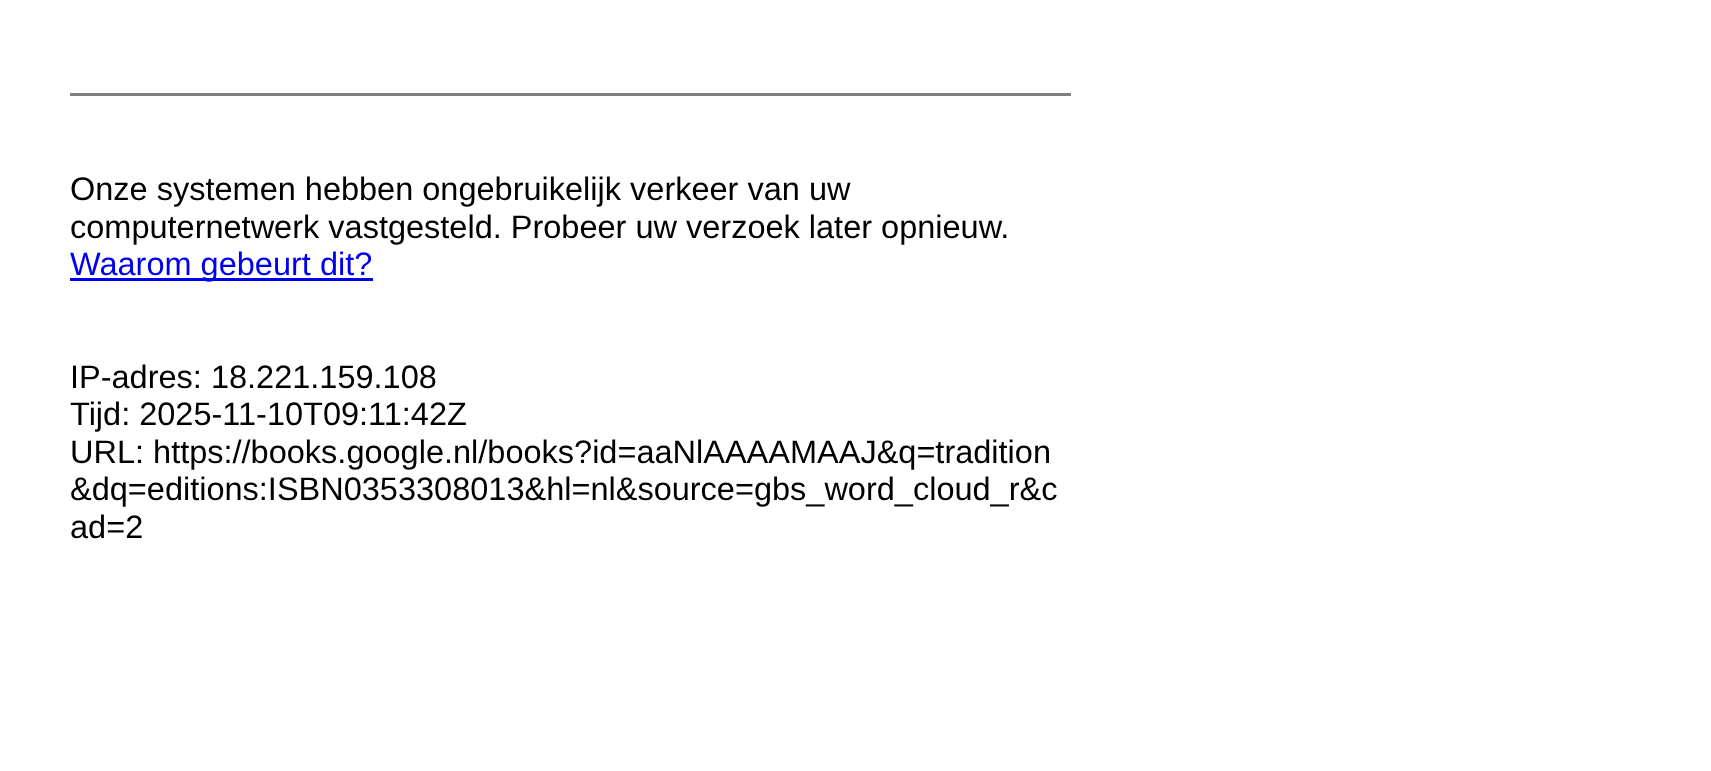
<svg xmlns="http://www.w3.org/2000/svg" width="1711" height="771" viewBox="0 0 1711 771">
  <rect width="100%" height="100%" fill="rgb(255,255,255)"/>
  <rect x="70" y="93" width="1001" height="3" fill="rgb(128,128,128)"/>
  <g font-family="Liberation Sans" font-size="32.5" fill="rgb(0,0,0)">
    <text>
      <tspan x="70" y="200">Onze systemen hebben ongebruikelijk verkeer van uw</tspan>
      <tspan x="70" y="238">computernetwerk vastgesteld. Probeer uw verzoek later opnieuw.</tspan>
    </text>
  </g>
  <rect x="70" y="278" width="303" height="3" fill="rgb(0,0,238)"/>
  <text x="70" y="275" font-family="Liberation Sans" font-size="32.5" fill="rgb(0,0,238)">Waarom gebeurt dit?</text>
  <g font-family="Liberation Sans" font-size="32.5" fill="rgb(0,0,0)">
    <text>
      <tspan x="70" y="388">IP-adres: 18.221.159.108</tspan>
      <tspan x="70" y="425">Tijd: 2025-11-10T09:11:42Z</tspan>
      <tspan x="70" y="463">URL: https://books.google.nl/books?id=aaNlAAAAMAAJ&amp;q=tradition</tspan>
      <tspan x="70" y="500">&amp;dq=editions:ISBN0353308013&amp;hl=nl&amp;source=gbs_word_cloud_r&amp;c</tspan>
      <tspan x="70" y="538">ad=2</tspan>
    </text>
  </g>
</svg>
